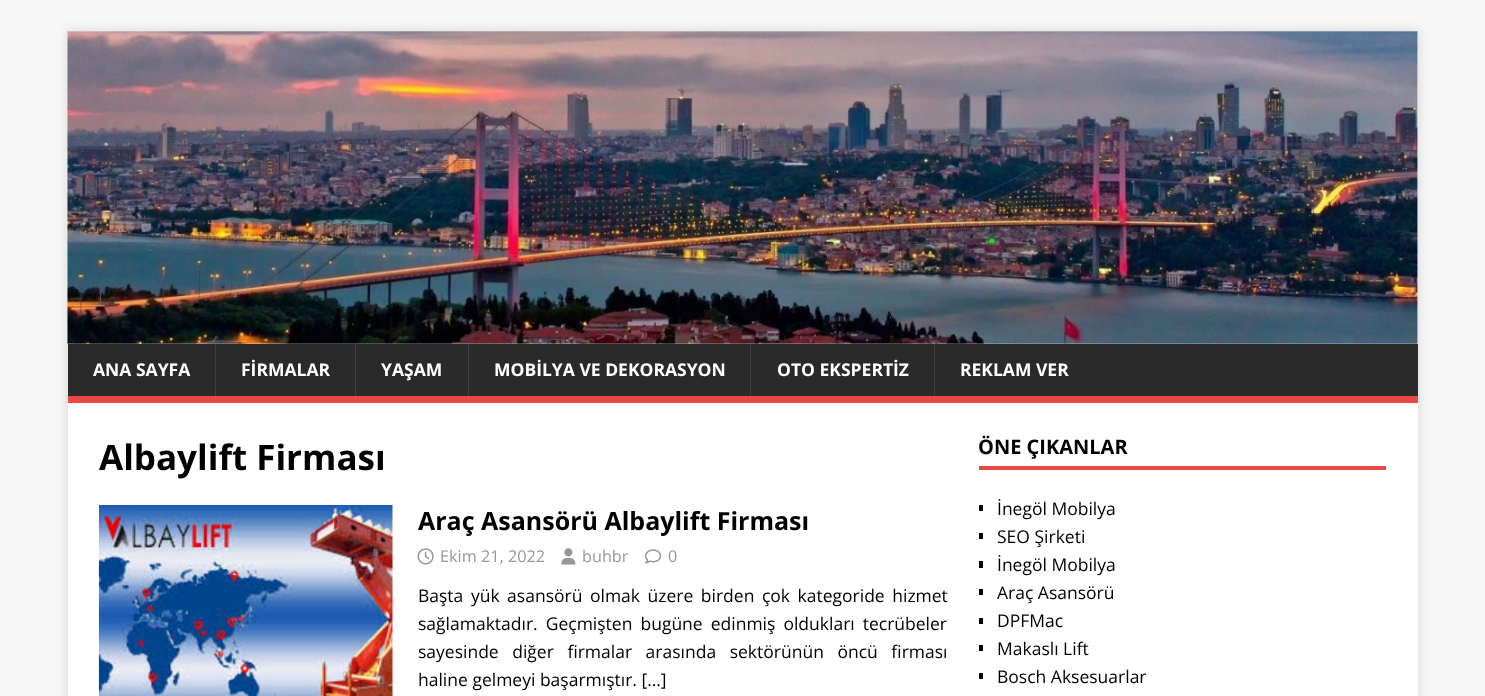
<svg xmlns="http://www.w3.org/2000/svg" width="1485" height="696" viewBox="0 0 1485 696">
  <rect width="100%" height="100%" fill="rgb(247,247,247)"/>
  <rect x="68" y="31" width="1350" height="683" fill="rgba(50,50,50,0.17)" filter="blur(6px)"/>
  <rect x="68" y="31" width="1350" height="313" fill="rgb(255,255,255)"/>
  <image x="67" y="31" width="1351" height="313" href="pic1.png"/>
  <rect x="68" y="344" width="1350" height="52" fill="rgb(42,42,42)"/>
  <rect x="68" y="396" width="1350" height="7" fill="rgb(230,73,70)"/>
  <text x="93" y="376" font-family="Open Sans" font-size="17.5" font-weight="bold" fill="rgb(255,255,255)">ANA SAYFA</text>
  <rect x="215" y="344" width="1" height="52" fill="rgb(63,63,63)"/>
  <text x="241" y="376" font-family="Open Sans" font-size="17.5" font-weight="bold" fill="rgb(255,255,255)">FİRMALAR</text>
  <rect x="355" y="344" width="1" height="52" fill="rgb(63,63,63)"/>
  <text x="381" y="376" font-family="Open Sans" font-size="17.5" font-weight="bold" fill="rgb(255,255,255)">YAŞAM</text>
  <rect x="468" y="344" width="1" height="52" fill="rgb(63,63,63)"/>
  <text x="494" y="376" font-family="Open Sans" font-size="17.5" font-weight="bold" fill="rgb(255,255,255)">MOBİLYA VE DEKORASYON</text>
  <rect x="750" y="344" width="1" height="52" fill="rgb(63,63,63)"/>
  <text x="777" y="376" font-family="Open Sans" font-size="17.5" font-weight="bold" fill="rgb(255,255,255)">OTO EKSPERTİZ</text>
  <rect x="934" y="344" width="1" height="52" fill="rgb(63,63,63)"/>
  <text x="960" y="376" font-family="Open Sans" font-size="17.5" font-weight="bold" fill="rgb(255,255,255)">REKLAM VER</text>
  <rect x="68" y="403" width="1350" height="293" fill="rgb(255,255,255)"/>
  <text x="99" y="470" font-family="Open Sans" font-size="35" font-weight="bold" fill="rgb(0,0,0)">Albaylift Firması</text>
  <image x="98" y="505" width="295" height="191" href="pic2.png"/>
  <text x="418" y="530" font-family="Open Sans" font-size="25" font-weight="bold" fill="rgb(0,0,0)">Araç Asansörü Albaylift Firması</text>
  <image x="417" y="548" width="17" height="17" href="pic3.png"/>
  <text x="440" y="562" font-family="Open Sans" font-size="16.25" fill="rgb(151,151,151)">Ekim 21, 2022</text>
  <image x="561" y="548" width="15" height="17" href="pic4.png"/>
  <text x="582" y="562" font-family="Open Sans" font-size="16.25" fill="rgb(151,151,151)">buhbr</text>
  <image x="645" y="549" width="17" height="15" href="pic5.png"/>
  <text x="668" y="562" font-family="Open Sans" font-size="16.25" fill="rgb(151,151,151)">0</text>
  <g font-family="Open Sans" font-size="17.5" fill="rgb(0,0,0)">
    <text>
      <tspan x="418" y="602" word-spacing="3">Başta yük asansörü olmak üzere birden çok kategoride hizmet</tspan>
      <tspan x="418" y="630" word-spacing="3.5">sağlamaktadır. Geçmişten bugüne edinmiş oldukları tecrübeler</tspan>
      <tspan x="418" y="658" word-spacing="9">sayesinde diğer firmalar arasında sektörünün öncü firması</tspan>
      <tspan x="418" y="686">haline gelmeyi başarmıştır. […]</tspan>
    </text>
  </g>
  <rect x="979" y="466" width="407" height="4" fill="rgb(230,73,70)"/>
  <text x="978" y="454" font-family="Open Sans" font-size="20" font-weight="bold" fill="rgb(0,0,0)">ÖNE ÇIKANLAR</text>
  <rect x="979" y="505" width="4" height="6" fill="rgb(0,0,0)"/>
  <text x="997" y="515" font-family="Open Sans" font-size="17.5" fill="rgb(0,0,0)">İnegöl Mobilya</text>
  <rect x="979" y="533" width="4" height="6" fill="rgb(0,0,0)"/>
  <text x="997" y="543" font-family="Open Sans" font-size="17.5" fill="rgb(0,0,0)">SEO Şirketi</text>
  <rect x="979" y="561" width="4" height="7" fill="rgb(0,0,0)"/>
  <text x="997" y="571" font-family="Open Sans" font-size="17.5" fill="rgb(0,0,0)">İnegöl Mobilya</text>
  <rect x="979" y="589" width="4" height="6" fill="rgb(0,0,0)"/>
  <text x="997" y="599" font-family="Open Sans" font-size="17.5" fill="rgb(0,0,0)">Araç Asansörü</text>
  <rect x="979" y="618" width="4" height="6" fill="rgb(0,0,0)"/>
  <text x="997" y="627" font-family="Open Sans" font-size="17.5" fill="rgb(0,0,0)">DPFMac</text>
  <rect x="979" y="645" width="4" height="6" fill="rgb(0,0,0)"/>
  <text x="997" y="655" font-family="Open Sans" font-size="17.5" fill="rgb(0,0,0)">Makaslı Lift</text>
  <rect x="979" y="673" width="4" height="6" fill="rgb(0,0,0)"/>
  <text x="997" y="683" font-family="Open Sans" font-size="17.5" fill="rgb(0,0,0)">Bosch Aksesuarlar</text>
</svg>
